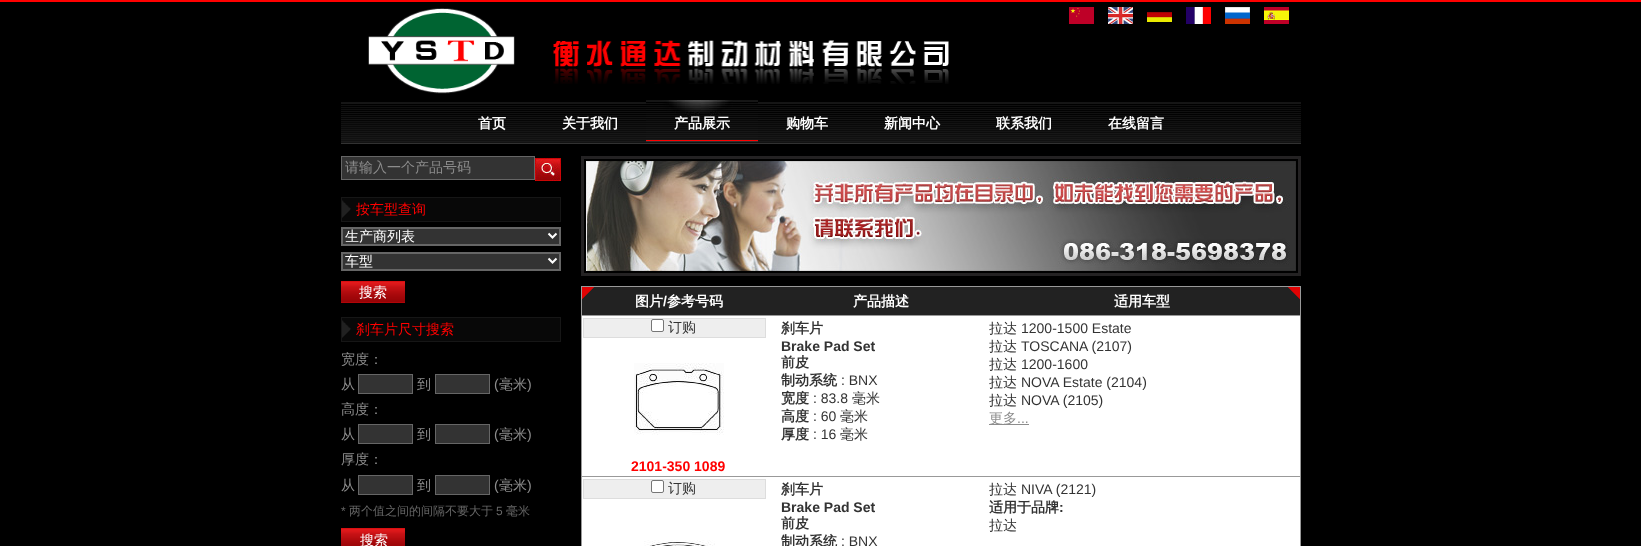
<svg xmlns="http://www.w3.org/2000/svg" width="1641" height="546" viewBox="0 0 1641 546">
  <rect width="100%" height="100%" fill="rgb(0,0,0)"/>
  <rect x="0" y="0" width="1641" height="2" fill="rgb(255,0,0)"/>
  <image x="368" y="8" width="147" height="86" href="pic1.png"/>
  <image x="553" y="40" width="396" height="44" href="pic2.png"/>
  <image x="1069" y="7" width="25" height="17" href="pic3.png"/>
  <image x="1108" y="7" width="25" height="17" href="pic4.png"/>
  <image x="1147" y="12" width="25" height="10" href="pic5.png"/>
  <image x="1186" y="7" width="25" height="17" href="pic6.png"/>
  <image x="1225" y="7" width="25" height="17" href="pic7.png"/>
  <image x="1264" y="7" width="25" height="17" href="pic8.png"/>
  <image x="341" y="102" width="960" height="42" href="pic9.png"/>
  <g font-family="WenQuanYi Zen Hei" font-size="14" font-weight="bold" fill="rgb(255,255,255)">
    <text x="478" y="128">首页</text>
    <text x="562" y="128">关于我们</text>
  </g>
  <image x="646" y="100" width="112" height="42" href="pic10.png"/>
  <g font-family="WenQuanYi Zen Hei" font-size="14" font-weight="bold" fill="rgb(255,255,255)">
    <text x="674" y="128">产品展示</text>
    <text x="786" y="128">购物车</text>
    <text x="884" y="128">新闻中心</text>
    <text x="996" y="128">联系我们</text>
    <text x="1108" y="128">在线留言</text>
  </g>
  <rect x="341.5" y="156.5" width="193" height="23" fill="rgb(51,51,51)" stroke="rgb(102,102,102)"/>
  <image x="535" y="158" width="26" height="23" href="pic11.png"/>
  <text x="345" y="172" font-family="WenQuanYi Zen Hei" font-size="14" font-weight="500" fill="rgb(141,141,141)">请输入一个产品号码</text>
  <rect x="341.5" y="197.5" width="219" height="24" fill="rgb(8,8,8)" stroke="rgb(22,22,22)"/>
  <image x="342" y="200" width="9" height="18" href="pic12.png"/>
  <text x="356" y="214" font-family="WenQuanYi Zen Hei" font-size="14" font-weight="500" fill="rgb(255,0,0)">按车型查询</text>
  <rect x="342" y="228" width="218" height="17" fill="none" stroke="rgb(102,102,102)" stroke-width="2"/>
  <rect x="343" y="229" width="216" height="15" fill="rgb(51,51,51)"/>
  <path d="M548.5 233.5L552.5 237.5L556.5 233.5" fill="none" stroke="rgb(255,255,255)" stroke-width="2"/>
  <text x="345" y="241" font-family="WenQuanYi Zen Hei" font-size="14" font-weight="500" fill="rgb(255,255,255)">生产商列表</text>
  <rect x="342" y="253" width="218" height="17" fill="none" stroke="rgb(102,102,102)" stroke-width="2"/>
  <rect x="343" y="254" width="216" height="15" fill="rgb(51,51,51)"/>
  <path d="M548.5 258.5L552.5 262.5L556.5 258.5" fill="none" stroke="rgb(255,255,255)" stroke-width="2"/>
  <text x="345" y="266" font-family="WenQuanYi Zen Hei" font-size="14" font-weight="500" fill="rgb(255,255,255)">车型</text>
  <image x="341" y="281" width="64" height="22" href="pic13.png"/>
  <text x="359" y="297" font-family="WenQuanYi Zen Hei" font-size="14" font-weight="500" fill="rgb(255,255,255)">搜索</text>
  <rect x="341.5" y="317.5" width="219" height="24" fill="rgb(8,8,8)" stroke="rgb(22,22,22)"/>
  <image x="342" y="320" width="9" height="18" href="pic12.png"/>
  <text x="356" y="334" font-family="WenQuanYi Zen Hei" font-size="14" font-weight="500" fill="rgb(255,0,0)">刹车片尺寸搜索</text>
  <g font-family="WenQuanYi Zen Hei" font-size="14" font-weight="500" fill="rgb(141,141,141)">
    <text>
      <tspan x="341" y="364">宽度：</tspan>
      <tspan x="341" y="389">从</tspan>
    </text>
  </g>
  <rect x="358.5" y="374.5" width="54" height="19" fill="rgb(51,51,51)" stroke="rgb(102,102,102)"/>
  <text x="417" y="389" font-family="WenQuanYi Zen Hei" font-size="14" font-weight="500" fill="rgb(141,141,141)">到</text>
  <rect x="435.5" y="374.5" width="54" height="19" fill="rgb(51,51,51)" stroke="rgb(102,102,102)"/>
  <text x="494" y="389" font-family="Liberation Sans" font-size="14" fill="rgb(141,141,141)">(</text>
  <text x="499" y="389" font-family="WenQuanYi Zen Hei" font-size="14" font-weight="500" fill="rgb(141,141,141)">毫米</text>
  <text x="527" y="389" font-family="Liberation Sans" font-size="14" fill="rgb(141,141,141)">)</text>
  <g font-family="WenQuanYi Zen Hei" font-size="14" font-weight="500" fill="rgb(141,141,141)">
    <text>
      <tspan x="341" y="414">高度：</tspan>
      <tspan x="341" y="439">从</tspan>
    </text>
  </g>
  <rect x="358.5" y="424.5" width="54" height="19" fill="rgb(51,51,51)" stroke="rgb(102,102,102)"/>
  <text x="417" y="439" font-family="WenQuanYi Zen Hei" font-size="14" font-weight="500" fill="rgb(141,141,141)">到</text>
  <rect x="435.5" y="424.5" width="54" height="19" fill="rgb(51,51,51)" stroke="rgb(102,102,102)"/>
  <text x="494" y="439" font-family="Liberation Sans" font-size="14" fill="rgb(141,141,141)">(</text>
  <text x="499" y="439" font-family="WenQuanYi Zen Hei" font-size="14" font-weight="500" fill="rgb(141,141,141)">毫米</text>
  <text x="527" y="439" font-family="Liberation Sans" font-size="14" fill="rgb(141,141,141)">)</text>
  <g font-family="WenQuanYi Zen Hei" font-size="14" font-weight="500" fill="rgb(141,141,141)">
    <text>
      <tspan x="341" y="464">厚度：</tspan>
      <tspan x="341" y="490">从</tspan>
    </text>
  </g>
  <rect x="358.5" y="475.5" width="54" height="19" fill="rgb(51,51,51)" stroke="rgb(102,102,102)"/>
  <text x="417" y="490" font-family="WenQuanYi Zen Hei" font-size="14" font-weight="500" fill="rgb(141,141,141)">到</text>
  <rect x="435.5" y="475.5" width="54" height="19" fill="rgb(51,51,51)" stroke="rgb(102,102,102)"/>
  <text x="494" y="490" font-family="Liberation Sans" font-size="14" fill="rgb(141,141,141)">(</text>
  <text x="499" y="490" font-family="WenQuanYi Zen Hei" font-size="14" font-weight="500" fill="rgb(141,141,141)">毫米</text>
  <text x="527" y="490" font-family="Liberation Sans" font-size="14" fill="rgb(141,141,141)">)</text>
  <text x="341" y="515" font-family="Liberation Sans" font-size="12" fill="rgb(102,102,102)">*</text>
  <text x="349" y="515" font-family="WenQuanYi Zen Hei" font-size="12" font-weight="500" fill="rgb(102,102,102)">两个值之间的间隔不要大于</text>
  <text x="496" y="515" font-family="Liberation Sans" font-size="12" fill="rgb(102,102,102)">5</text>
  <text x="506" y="515" font-family="WenQuanYi Zen Hei" font-size="12" font-weight="500" fill="rgb(102,102,102)">毫米</text>
  <image x="341" y="528" width="64" height="18" href="pic14.png"/>
  <text x="360" y="545" font-family="WenQuanYi Zen Hei" font-size="14" font-weight="500" fill="rgb(255,255,255)">搜索</text>
  <image x="586" y="161" width="710" height="110" href="pic15.png"/>
  <rect x="582.5" y="157.5" width="717" height="117" fill="none" stroke="rgb(36,34,35)" stroke-width="3"/>
  <rect x="582" y="316" width="718" height="230" fill="rgb(255,255,255)"/>
  <image x="582" y="287" width="718" height="28" href="pic16.png"/>
  <rect x="581" y="286" width="720" height="1" fill="rgb(153,153,153)"/>
  <rect x="1300" y="286" width="1" height="260" fill="rgb(153,153,153)"/>
  <rect x="581" y="286" width="1" height="260" fill="rgb(153,153,153)"/>
  <text x="635" y="306" font-family="WenQuanYi Zen Hei" font-size="14" font-weight="bold" fill="rgb(255,255,255)">图片</text>
  <text x="663" y="306" font-family="Liberation Sans" font-size="14" font-weight="bold" fill="rgb(255,255,255)">/</text>
  <g font-family="WenQuanYi Zen Hei" font-size="14" font-weight="bold" fill="rgb(255,255,255)">
    <text x="667" y="306">参考号码</text>
    <text x="853" y="306">产品描述</text>
    <text x="1114" y="306">适用车型</text>
  </g>
  <rect x="583.5" y="318.5" width="182" height="19" fill="rgb(238,238,238)" stroke="rgb(221,221,221)"/>
  <rect x="651.5" y="319.5" width="12" height="12" rx="1.5" fill="rgb(255,255,255)" stroke="rgb(118,118,118)"/>
  <text x="668" y="332" font-family="WenQuanYi Zen Hei" font-size="14" font-weight="500" fill="rgb(51,51,51)">订购</text>
  <image x="634" y="363" width="90" height="72" href="pic17.png"/>
  <text x="631" y="471" font-family="Liberation Sans" font-size="14" font-weight="bold" fill="rgb(255,0,0)">2101-350 1089</text>
  <text x="781" y="333" font-family="WenQuanYi Zen Hei" font-size="14" font-weight="bold" fill="rgb(51,51,51)">刹车片</text>
  <text x="781" y="351" font-family="Liberation Sans" font-size="14" font-weight="bold" fill="rgb(51,51,51)">Brake Pad Set</text>
  <g font-family="WenQuanYi Zen Hei" font-size="14" font-weight="bold" fill="rgb(51,51,51)">
    <text>
      <tspan x="781" y="367">前皮</tspan>
      <tspan x="781" y="385">制动系统</tspan>
    </text>
  </g>
  <text x="841" y="385" font-family="Liberation Sans" font-size="14" fill="rgb(51,51,51)">: BNX</text>
  <text x="781" y="403" font-family="WenQuanYi Zen Hei" font-size="14" font-weight="bold" fill="rgb(51,51,51)">宽度</text>
  <text x="813" y="403" font-family="Liberation Sans" font-size="14" fill="rgb(51,51,51)">: 83.8</text>
  <text x="852" y="403" font-family="WenQuanYi Zen Hei" font-size="14" font-weight="500" fill="rgb(51,51,51)">毫米</text>
  <text x="781" y="421" font-family="WenQuanYi Zen Hei" font-size="14" font-weight="bold" fill="rgb(51,51,51)">高度</text>
  <text x="813" y="421" font-family="Liberation Sans" font-size="14" fill="rgb(51,51,51)">: 60</text>
  <text x="840" y="421" font-family="WenQuanYi Zen Hei" font-size="14" font-weight="500" fill="rgb(51,51,51)">毫米</text>
  <text x="781" y="439" font-family="WenQuanYi Zen Hei" font-size="14" font-weight="bold" fill="rgb(51,51,51)">厚度</text>
  <text x="813" y="439" font-family="Liberation Sans" font-size="14" fill="rgb(51,51,51)">: 16</text>
  <text x="840" y="439" font-family="WenQuanYi Zen Hei" font-size="14" font-weight="500" fill="rgb(51,51,51)">毫米</text>
  <rect x="581" y="315" width="720" height="1" fill="rgb(153,153,153)"/>
  <text x="989" y="333" font-family="WenQuanYi Zen Hei" font-size="14" font-weight="500" fill="rgb(51,51,51)">拉达</text>
  <text x="1021" y="333" font-family="Liberation Sans" font-size="14" fill="rgb(51,51,51)">1200-1500 Estate</text>
  <text x="989" y="351" font-family="WenQuanYi Zen Hei" font-size="14" font-weight="500" fill="rgb(51,51,51)">拉达</text>
  <text x="1021" y="351" font-family="Liberation Sans" font-size="14" fill="rgb(51,51,51)">TOSCANA (2107)</text>
  <text x="989" y="369" font-family="WenQuanYi Zen Hei" font-size="14" font-weight="500" fill="rgb(51,51,51)">拉达</text>
  <text x="1021" y="369" font-family="Liberation Sans" font-size="14" fill="rgb(51,51,51)">1200-1600</text>
  <text x="989" y="387" font-family="WenQuanYi Zen Hei" font-size="14" font-weight="500" fill="rgb(51,51,51)">拉达</text>
  <text x="1021" y="387" font-family="Liberation Sans" font-size="14" fill="rgb(51,51,51)">NOVA Estate (2104)</text>
  <text x="989" y="405" font-family="WenQuanYi Zen Hei" font-size="14" font-weight="500" fill="rgb(51,51,51)">拉达</text>
  <text x="1021" y="405" font-family="Liberation Sans" font-size="14" fill="rgb(51,51,51)">NOVA (2105)</text>
  <rect x="989" y="424" width="40" height="1" fill="rgb(141,141,141)"/>
  <text x="989" y="423" font-family="WenQuanYi Zen Hei" font-size="14" font-weight="500" fill="rgb(141,141,141)">更多</text>
  <text x="1017" y="423" font-family="Liberation Sans" font-size="14" fill="rgb(141,141,141)">...</text>
  <rect x="583.5" y="479.5" width="182" height="19" fill="rgb(238,238,238)" stroke="rgb(221,221,221)"/>
  <rect x="651.5" y="480.5" width="12" height="12" rx="1.5" fill="rgb(255,255,255)" stroke="rgb(118,118,118)"/>
  <text x="668" y="493" font-family="WenQuanYi Zen Hei" font-size="14" font-weight="500" fill="rgb(51,51,51)">订购</text>
  <image x="644" y="540" width="71" height="6" href="pic18.png"/>
  <text x="781" y="494" font-family="WenQuanYi Zen Hei" font-size="14" font-weight="bold" fill="rgb(51,51,51)">刹车片</text>
  <text x="781" y="512" font-family="Liberation Sans" font-size="14" font-weight="bold" fill="rgb(51,51,51)">Brake Pad Set</text>
  <g font-family="WenQuanYi Zen Hei" font-size="14" font-weight="bold" fill="rgb(51,51,51)">
    <text>
      <tspan x="781" y="528">前皮</tspan>
      <tspan x="781" y="546">制动系统</tspan>
    </text>
  </g>
  <text x="841" y="546" font-family="Liberation Sans" font-size="14" fill="rgb(51,51,51)">: BNX</text>
  <rect x="581" y="476" width="720" height="1" fill="rgb(153,153,153)"/>
  <text x="989" y="494" font-family="WenQuanYi Zen Hei" font-size="14" font-weight="500" fill="rgb(51,51,51)">拉达</text>
  <text x="1021" y="494" font-family="Liberation Sans" font-size="14" fill="rgb(51,51,51)">NIVA (2121)</text>
  <text x="989" y="512" font-family="WenQuanYi Zen Hei" font-size="14" font-weight="bold" fill="rgb(51,51,51)">适用于品牌</text>
  <text x="1059" y="512" font-family="Liberation Sans" font-size="14" font-weight="bold" fill="rgb(51,51,51)">:</text>
  <text x="989" y="530" font-family="WenQuanYi Zen Hei" font-size="14" font-weight="500" fill="rgb(51,51,51)">拉达</text>
</svg>
